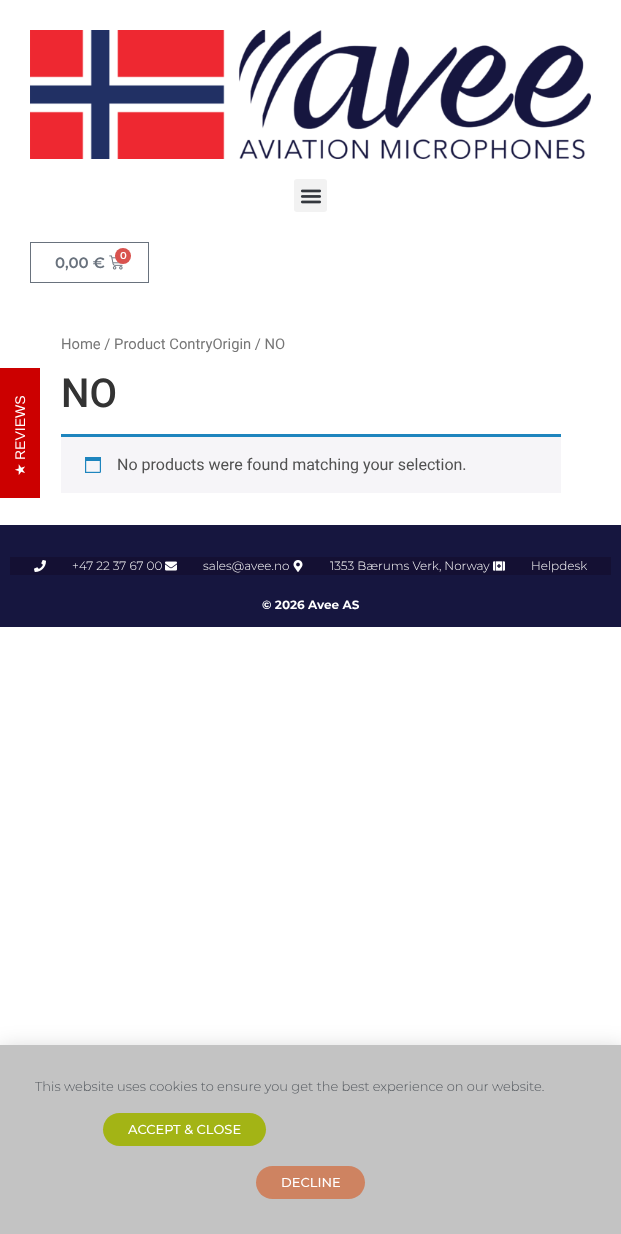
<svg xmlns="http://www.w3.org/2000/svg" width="621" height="1234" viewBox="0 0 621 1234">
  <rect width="100%" height="100%" fill="rgb(255,255,255)"/>
  <image x="30" y="30" width="561" height="129" href="pic1.png"/>
  <rect x="294" y="179" width="33" height="33" rx="3" fill="rgb(242,242,242)"/>
  <image x="300" y="189" width="22" height="15" href="pic2.png"/>
  <rect x="30.5" y="242.5" width="118" height="40" fill="none" stroke="rgb(105,114,125)"/>
  <image x="109" y="255" width="14" height="15" href="pic3.png"/>
  <circle cx="123" cy="256" r="8" fill="rgb(217,83,79)"/>
  <text x="120" y="259" font-family="Montserrat" font-size="10" font-weight="600" fill="rgb(255,255,255)">0</text>
  <text x="55" y="268" font-family="Montserrat" font-size="15" font-weight="600" fill="rgb(105,114,125)">0,00 €</text>
  <rect x="0" y="368" width="40" height="130" fill="rgb(204,0,0)"/>
  <text x="25" y="460" transform="rotate(-90 25 460)" font-family="Liberation Sans" font-size="14" fill="rgb(255,255,255)">REVIEWS</text>
  <text x="25" y="476" transform="rotate(-90 25 476)" font-family="DejaVu Sans" font-size="14" fill="rgb(255,255,255)">★</text>
  <text x="61" y="349" font-family="Roboto" font-size="14.75" fill="rgb(118,118,118)">Home / Product ContryOrigin / NO</text>
  <text x="61" y="407" font-family="Roboto" font-size="40" font-weight="500" fill="rgb(51,51,51)">NO</text>
  <rect x="61" y="437" width="500" height="56" fill="rgb(246,245,248)"/>
  <rect x="61" y="434" width="500" height="3" fill="rgb(30,133,190)"/>
  <image x="85" y="457" width="16" height="16" href="pic4.png"/>
  <text x="117" y="470" font-family="Roboto" font-size="16" fill="rgb(81,81,81)">No products were found matching your selection.</text>
  <rect x="0" y="525" width="621" height="102" fill="rgb(22,22,63)"/>
  <rect x="10" y="557" width="601" height="18" fill="rgb(20,16,51)"/>
  <image x="34" y="560" width="12" height="12" href="pic5.png"/>
  <text x="72" y="570" font-family="Montserrat" font-size="12" font-weight="300" fill="rgb(255,255,255)">+47 22 37 67 00</text>
  <image x="165" y="561" width="12" height="10" href="pic6.png"/>
  <text x="203" y="570" font-family="Montserrat" font-size="12" font-weight="300" fill="rgb(255,255,255)">sales@avee.no</text>
  <image x="293" y="560" width="10" height="12" href="pic7.png"/>
  <text x="330" y="570" font-family="Montserrat" font-size="12" font-weight="300" fill="rgb(255,255,255)">1353 Bærums Verk, Norway</text>
  <image x="493" y="561" width="12" height="10" href="pic8.png"/>
  <text x="531" y="570" font-family="Montserrat" font-size="12" font-weight="300" fill="rgb(255,255,255)">Helpdesk</text>
  <text x="262" y="609" font-family="Montserrat" font-size="12" font-weight="bold" fill="rgb(255,255,255)">© 2026 Avee AS</text>
  <rect x="-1" y="1050" width="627" height="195" fill="rgba(0,0,0,0.2)" filter="blur(11.5px)"/>
  <rect x="0" y="1045" width="621" height="189" fill="rgb(195,195,195)"/>
  <text x="35" y="1091" font-family="Montserrat" font-size="13" font-weight="300" fill="rgb(84,89,95)">This website uses cookies to ensure you get the best experience on our website.</text>
  <rect x="103" y="1113" width="163" height="33" rx="16.5" fill="rgb(163,180,21)"/>
  <text x="128" y="1134" font-family="Montserrat" font-size="13" font-weight="500" fill="rgb(255,255,255)">ACCEPT &amp; CLOSE</text>
  <rect x="256" y="1166" width="109" height="33" rx="16.5" fill="rgb(206,131,97)"/>
  <text x="281" y="1187" font-family="Montserrat" font-size="13" font-weight="500" fill="rgb(255,255,255)">DECLINE</text>
</svg>
